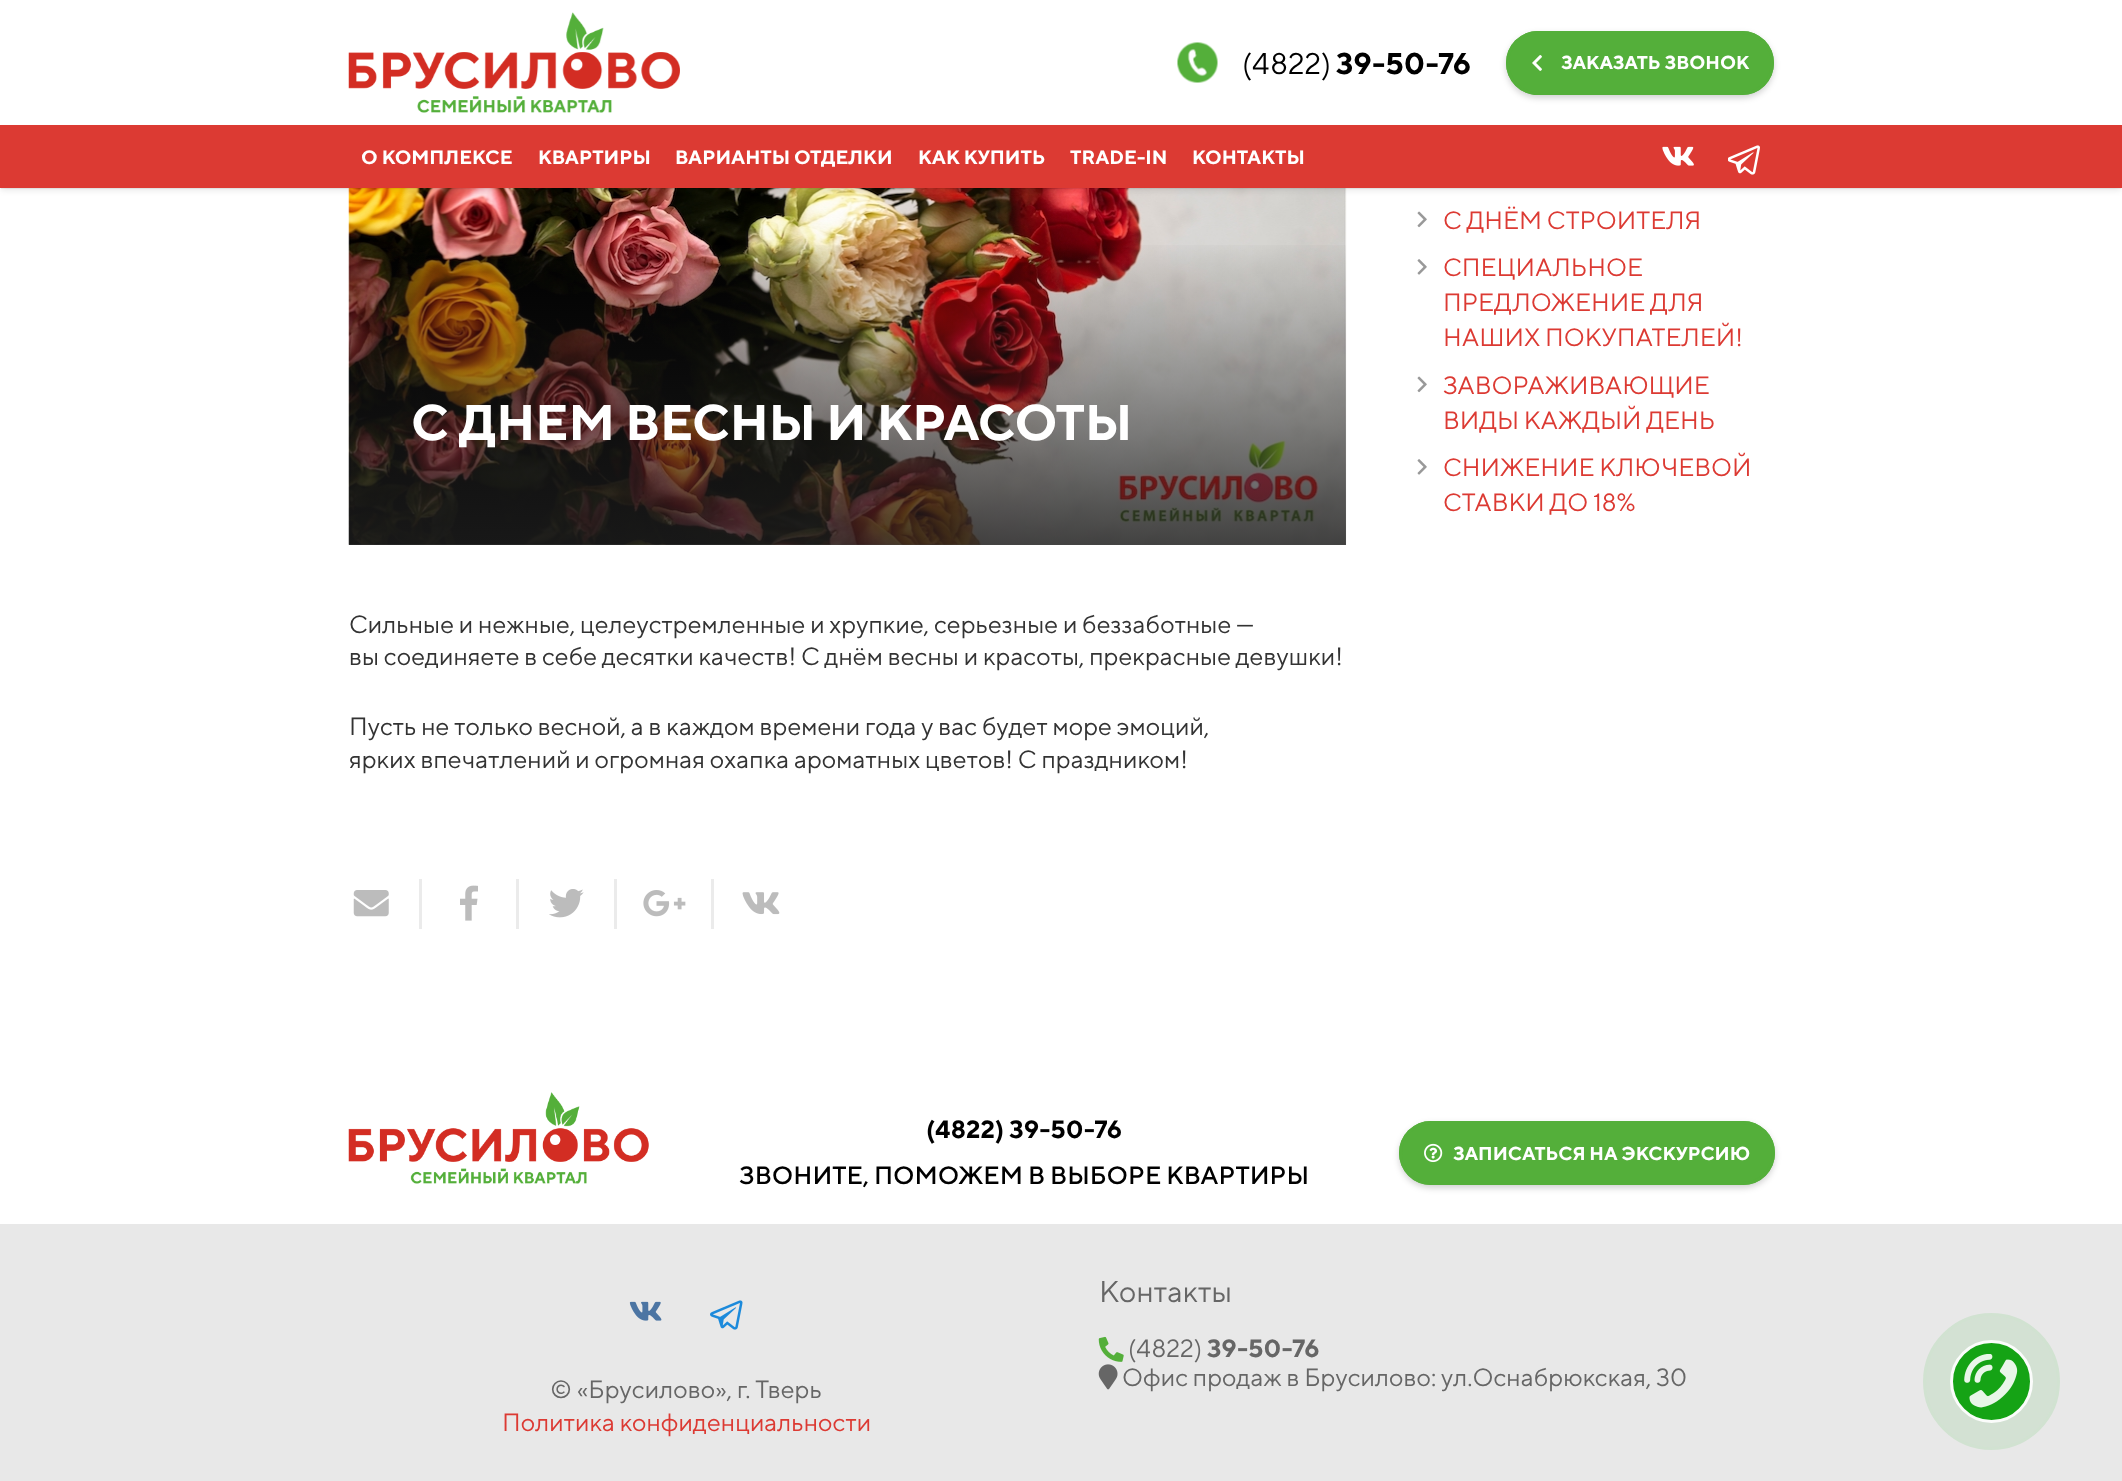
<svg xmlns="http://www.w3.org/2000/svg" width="2122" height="1481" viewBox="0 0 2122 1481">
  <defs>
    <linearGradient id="g1" gradientUnits="userSpaceOnUse" x1="848" y1="237" x2="848" y2="545"><stop offset="0" stop-color="rgb(30,30,30)" stop-opacity="0"/><stop offset="1" stop-color="rgb(30,30,30)" stop-opacity="0.8"/></linearGradient>
  </defs>
  <rect width="100%" height="100%" fill="rgb(255,255,255)"/>
  <image x="348" y="12" width="332" height="101" href="pic1.png"/>
  <image x="1177" y="42" width="41" height="41" href="pic2.png"/>
  <text x="1242" y="74" font-family="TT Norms" font-size="30" fill="rgb(0,0,0)">(‍4822‍)</text>
  <text x="1336" y="74" font-family="TT Norms" font-size="30" font-weight="bold" fill="rgb(0,0,0)">39‍-‍50‍-‍76</text>
  <rect x="1506" y="34" width="268" height="64" rx="32" fill="rgba(0,0,0,0.18)" filter="blur(3px)"/>
  <rect x="1506" y="31" width="268" height="64" rx="32" fill="rgb(84,175,58)"/>
  <image x="1532" y="55" width="10" height="16" href="pic3.png"/>
  <rect x="1507.5" y="32.5" width="265" height="61" rx="30.5" fill="none" stroke="rgb(84,175,58)" stroke-width="3"/>
  <text x="1561" y="69" font-family="TT Norms" font-size="18.75" font-weight="bold" fill="rgb(255,255,255)">ЗАКАЗАТЬ ЗВОНОК</text>
  <image x="348" y="188" width="999" height="357" href="pic8.png"/>
  <rect x="1" y="129" width="2120" height="60" fill="rgba(0,0,0,0.05)" filter="blur(0.5px)"/>
  <rect x="1" y="130" width="2120" height="60" fill="rgba(0,0,0,0.1)" filter="blur(3px)"/>
  <rect x="0" y="125" width="2122" height="63" fill="rgb(220,58,51)"/>
  <g font-family="TT Norms" font-size="19.4" font-weight="bold" fill="rgb(255,255,255)">
    <text x="361" y="164">О КОМПЛЕКСЕ</text>
    <text x="538" y="164">КВАРТИРЫ</text>
    <text x="675" y="164">ВАРИАНТЫ ОТДЕЛКИ</text>
    <text x="918" y="164">КАК КУПИТЬ</text>
    <text x="1070" y="164">TRADE-IN</text>
    <text x="1192" y="164">КОНТАКТЫ</text>
  </g>
  <image x="1662" y="146" width="32" height="20" href="pic4.png"/>
  <image x="1728" y="145" width="32" height="30" href="pic5.png"/>
  <image x="1417" y="211" width="10" height="17" href="pic6.png"/>
  <text x="1443" y="229" font-family="TT Norms" font-size="25" fill="rgb(220,58,51)">С ДНЁМ СТРОИТЕЛЯ</text>
  <image x="1417" y="259" width="10" height="16" href="pic7.png"/>
  <g font-family="TT Norms" font-size="25" fill="rgb(220,58,51)">
    <text>
      <tspan x="1443" y="276">СПЕЦИАЛЬНОЕ</tspan>
      <tspan x="1443" y="311">ПРЕДЛОЖЕНИЕ ДЛЯ</tspan>
      <tspan x="1443" y="346">НАШИХ ПОКУПАТЕЛЕЙ!</tspan>
    </text>
  </g>
  <image x="1417" y="376" width="10" height="17" href="pic6.png"/>
  <g font-family="TT Norms" font-size="25" fill="rgb(220,58,51)">
    <text>
      <tspan x="1443" y="394">ЗАВОРАЖИВАЮЩИЕ</tspan>
      <tspan x="1443" y="429">ВИДЫ КАЖДЫЙ ДЕНЬ</tspan>
    </text>
  </g>
  <image x="1417" y="459" width="10" height="16" href="pic7.png"/>
  <g font-family="TT Norms" font-size="25" fill="rgb(220,58,51)">
    <text>
      <tspan x="1443" y="476">СНИЖЕНИЕ КЛЮЧЕВОЙ</tspan>
      <tspan x="1443" y="511">СТАВКИ ДО 18%</tspan>
    </text>
  </g>
  <rect x="349" y="245" width="997" height="300" fill="url(#g1)"/>
  <text x="411" y="440" font-family="TT Norms" font-size="50" font-weight="bold" fill="rgb(255,255,255)">С ДНЕМ ВЕСНЫ И КРАСОТЫ</text>
  <g font-family="TT Norms" font-size="25" fill="rgb(51,51,51)">
    <text>
      <tspan x="349" y="633">Сильные и нежные, целеустремленные и хрупкие, серьезные и беззаботные —</tspan>
      <tspan x="349" y="665">вы соединяете в себе десятки качеств! С днём весны и красоты, прекрасные девушки!</tspan>
    </text>
    <text>
      <tspan x="349" y="735">Пусть не только весной, а в каждом времени года у вас будет море эмоций,</tspan>
      <tspan x="349" y="768">ярких впечатлений и огромная охапка ароматных цветов! С праздником!</tspan>
    </text>
  </g>
  <rect x="419" y="879" width="3" height="50" fill="rgb(235,235,235)"/>
  <image x="353" y="890" width="36" height="27" href="pic9.png"/>
  <rect x="516" y="879" width="3" height="50" fill="rgb(235,235,235)"/>
  <image x="460" y="885" width="18" height="36" href="pic10.png"/>
  <rect x="614" y="879" width="3" height="50" fill="rgb(235,235,235)"/>
  <image x="549" y="889" width="35" height="29" href="pic11.png"/>
  <rect x="711" y="879" width="3" height="50" fill="rgb(235,235,235)"/>
  <image x="643" y="890" width="43" height="27" href="pic12.png"/>
  <image x="742" y="892" width="38" height="23" href="pic13.png"/>
  <image x="348" y="1092" width="301" height="92" href="pic14.png"/>
  <text x="926" y="1138" font-family="TT Norms" font-size="25" font-weight="bold" fill="rgb(0,0,0)">(‍4822‍) 39‍-‍50‍-‍76</text>
  <text x="739" y="1184" font-family="TT Norms" font-size="25" font-weight="500" fill="rgb(0,0,0)">ЗВОНИТЕ, ПОМОЖЕМ В ВЫБОРЕ КВАРТИРЫ</text>
  <rect x="1399" y="1124" width="376" height="64" rx="32" fill="rgba(0,0,0,0.18)" filter="blur(3px)"/>
  <rect x="1399" y="1121" width="376" height="64" rx="32" fill="rgb(84,175,58)"/>
  <image x="1424" y="1143" width="19" height="20" href="pic15.png"/>
  <rect x="1400.5" y="1122.5" width="373" height="61" rx="30.5" fill="none" stroke="rgb(84,175,58)" stroke-width="3"/>
  <text x="1453" y="1160" font-family="TT Norms" font-size="18.75" font-weight="bold" fill="rgb(255,255,255)">ЗАПИСАТЬСЯ НА ЭКСКУРСИЮ</text>
  <rect x="0" y="1224" width="2122" height="257" fill="rgb(232,232,232)"/>
  <text x="1099" y="1302" font-family="TT Norms" font-size="30" fill="rgb(102,102,102)">Контакты</text>
  <image x="1098" y="1336" width="26" height="26" href="pic16.png"/>
  <text x="1128" y="1357" font-family="TT Norms" font-size="25" fill="rgb(102,102,102)">(‍4822‍)</text>
  <text x="1207" y="1357" font-family="TT Norms" font-size="25" font-weight="bold" fill="rgb(102,102,102)">39‍-‍50‍-‍76</text>
  <image x="1098" y="1364" width="20" height="26" href="pic17.png"/>
  <text x="1122" y="1386" font-family="TT Norms" font-size="25" fill="rgb(102,102,102)">Офис продаж в Брусилово: ул.Оснабрюкская, 30</text>
  <image x="629" y="1301" width="33" height="20" href="pic18.png"/>
  <image x="710" y="1300" width="33" height="30" href="pic19.png"/>
  <text x="550" y="1398" font-family="TT Norms" font-size="25" fill="rgb(102,102,102)">© «Брусилово», г. Тверь</text>
  <text x="502" y="1431" font-family="TT Norms" font-size="25" fill="rgb(220,58,51)">Политика конфиденциальности</text>
  <circle cx="1991.5" cy="1381.5" r="67" fill="rgb(211,225,211)" stroke="rgb(209,226,209)" stroke-width="3"/>
  <circle cx="1991.5" cy="1381.5" r="40" fill="rgb(21,163,21)" stroke="rgb(251,252,251)" stroke-width="3"/>
  <image x="1964" y="1354" width="54" height="54" href="pic20.png"/>
</svg>
